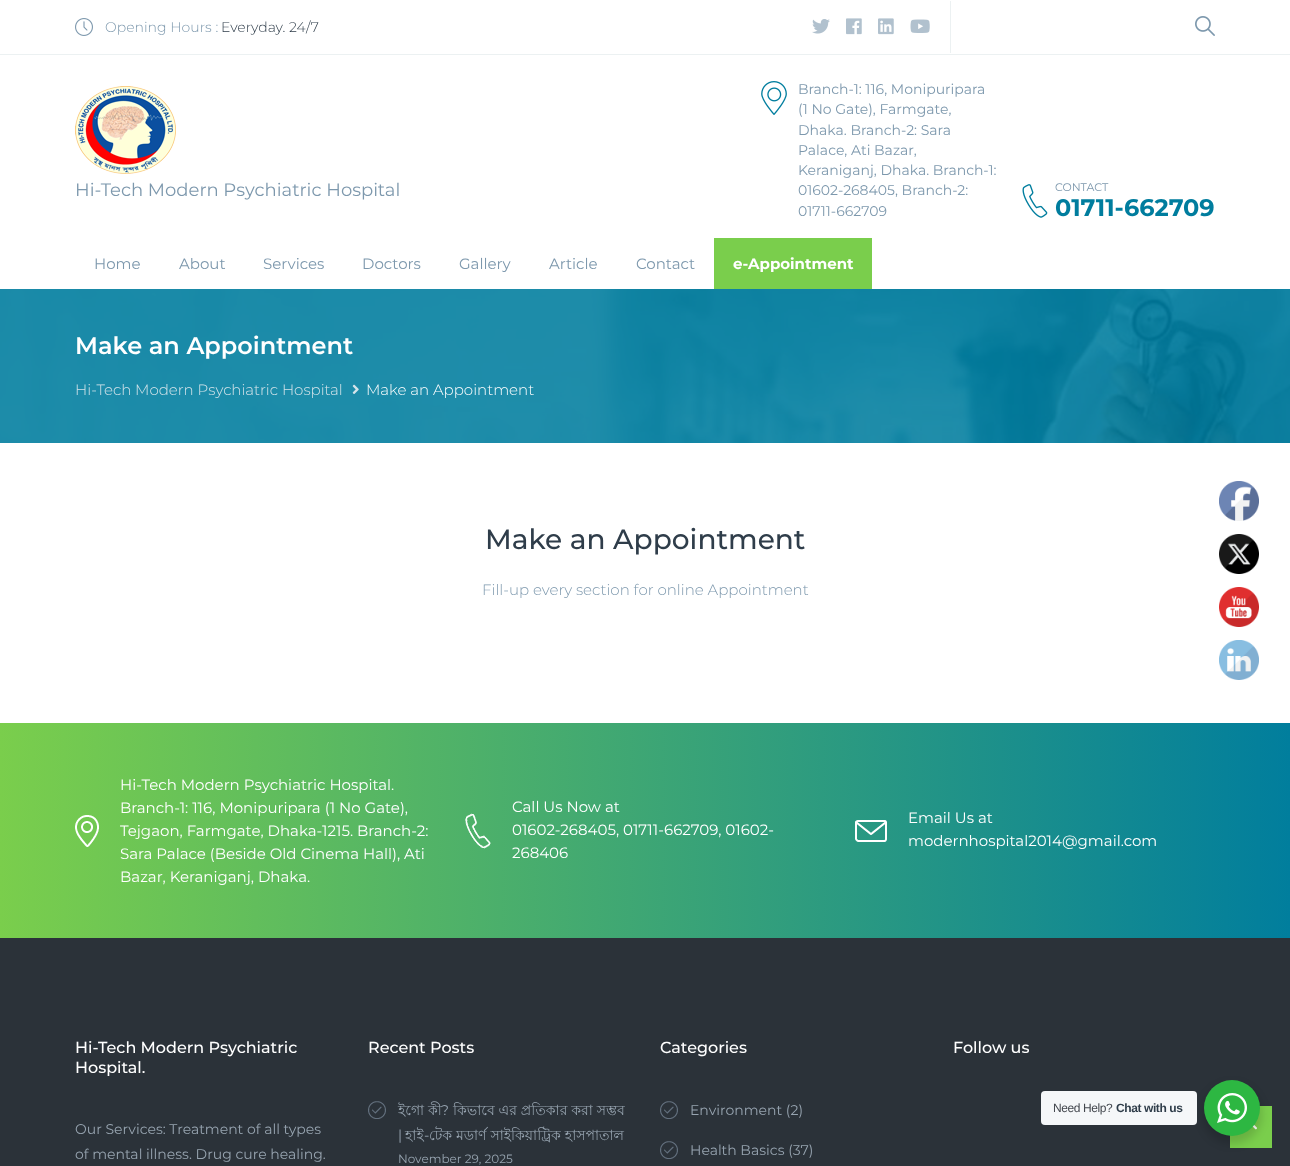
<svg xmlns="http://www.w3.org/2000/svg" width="1290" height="1166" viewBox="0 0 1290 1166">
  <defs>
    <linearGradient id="g1" gradientUnits="userSpaceOnUse" x1="0" y1="831" x2="1290" y2="831"><stop offset="0" stop-color="rgb(122,206,76)"/><stop offset="1" stop-color="rgb(1,126,157)"/></linearGradient>
  </defs>
  <rect width="100%" height="100%" fill="rgb(255,255,255)"/>
  <rect x="0" y="54" width="1290" height="1" fill="rgb(236,241,242)"/>
  <image x="75" y="18" width="18" height="18" href="pic1.png"/>
  <text x="105" y="32" font-family="Montserrat" font-size="14" font-weight="300" fill="rgb(125,152,173)">Opening Hours :</text>
  <text x="221" y="32" font-family="Montserrat" font-size="14" font-weight="300" fill="rgb(47,61,74)">Everyday. 24/7</text>
  <image x="812" y="19" width="18" height="15" href="pic2.png"/>
  <image x="846" y="18" width="16" height="17" href="pic3.png"/>
  <image x="878" y="18" width="16" height="17" href="pic4.png"/>
  <image x="910" y="19" width="20" height="14" href="pic5.png"/>
  <rect x="950" y="1" width="1" height="52" fill="rgb(236,241,242)"/>
  <image x="1195" y="16" width="20" height="20" href="pic6.png"/>
  <image x="75" y="86" width="101" height="88" href="pic7.png"/>
  <text x="75" y="196" font-family="Montserrat" font-size="18" fill="rgb(125,152,173)">Hi-Tech Modern Psychiatric Hospital</text>
  <image x="761" y="81" width="26" height="34" href="pic8.png"/>
  <g font-family="Montserrat" font-size="14" fill="rgb(125,152,173)">
    <text>
      <tspan x="798" y="94">Branch-1: 116, Monipuripara</tspan>
      <tspan x="798" y="114">(1 No Gate), Farmgate,</tspan>
      <tspan x="798" y="135">Dhaka. Branch-2: Sara</tspan>
      <tspan x="798" y="155">Palace, Ati Bazar,</tspan>
      <tspan x="798" y="175">Keraniganj, Dhaka. Branch-1:</tspan>
      <tspan x="798" y="195">01602-268405, Branch-2:</tspan>
      <tspan x="798" y="216">01711-662709</tspan>
    </text>
  </g>
  <image x="1022" y="184" width="26" height="34" href="pic9.png"/>
  <text x="1055" y="191" font-family="Montserrat" font-size="11" fill="rgb(125,152,173)">CONTACT</text>
  <text x="1055" y="216" font-family="Montserrat" font-size="24" font-weight="bold" fill="rgb(0,125,158)">01711-662709</text>
  <g font-family="Montserrat" font-size="15" fill="rgb(125,152,173)">
    <text x="94" y="269">Home</text>
    <text x="179" y="269">About</text>
    <text x="263" y="269">Services</text>
    <text x="362" y="269">Doctors</text>
    <text x="459" y="269">Gallery</text>
    <text x="549" y="269">Article</text>
    <text x="636" y="269">Contact</text>
  </g>
  <rect x="714" y="238" width="158" height="51" fill="rgb(122,206,76)"/>
  <text x="733" y="269" font-family="Montserrat" font-size="15" font-weight="bold" fill="rgb(255,255,255)">e-Appointment</text>
  <image x="0" y="289" width="1290" height="154" href="pic10.png"/>
  <text x="75" y="354" font-family="Montserrat" font-size="24" font-weight="600" fill="rgb(255,255,255)">Make an Appointment</text>
  <text x="75" y="395" font-family="Montserrat" font-size="15" font-weight="300" fill="rgb(213,228,234)">Hi-Tech Modern Psychiatric Hospital</text>
  <image x="352" y="384" width="7" height="10" href="pic11.png"/>
  <text x="366" y="395" font-family="Montserrat" font-size="15" font-weight="300" fill="rgb(255,255,255)">Make an Appointment</text>
  <text x="485" y="549" font-family="Montserrat" font-size="28" font-weight="500" fill="rgb(47,61,74)">Make an Appointment</text>
  <text x="482" y="595" font-family="Montserrat" font-size="15" font-weight="300" fill="rgb(125,152,173)">Fill-up every section for online Appointment</text>
  <rect x="0" y="723" width="1290" height="215" fill="url(#g1)"/>
  <image x="75" y="815" width="24" height="32" href="pic12.png"/>
  <g font-family="Montserrat" font-size="15" fill="rgb(255,255,255)">
    <text>
      <tspan x="120" y="790">Hi-Tech Modern Psychiatric Hospital.</tspan>
      <tspan x="120" y="813">Branch-1: 116, Monipuripara (1 No Gate),</tspan>
      <tspan x="120" y="836">Tejgaon, Farmgate, Dhaka-1215. Branch-2:</tspan>
      <tspan x="120" y="859">Sara Palace (Beside Old Cinema Hall), Ati</tspan>
      <tspan x="120" y="882">Bazar, Keraniganj, Dhaka.</tspan>
    </text>
  </g>
  <image x="465" y="813" width="26" height="36" href="pic13.png"/>
  <g font-family="Montserrat" font-size="15" fill="rgb(255,255,255)">
    <text>
      <tspan x="512" y="812">Call Us Now at</tspan>
      <tspan x="512" y="835">01602-268405, 01711-662709, 01602-</tspan>
      <tspan x="512" y="858">268406</tspan>
    </text>
  </g>
  <image x="855" y="820" width="32" height="22" href="pic14.png"/>
  <g font-family="Montserrat" font-size="15" fill="rgb(255,255,255)">
    <text>
      <tspan x="908" y="823">Email Us at</tspan>
      <tspan x="908" y="846">modernhospital2014@gmail.com</tspan>
    </text>
  </g>
  <rect x="0" y="938" width="1290" height="228" fill="rgb(43,50,57)"/>
  <g font-family="Montserrat" font-size="16" font-weight="500" fill="rgb(255,255,255)">
    <text>
      <tspan x="75" y="1053">Hi-Tech Modern Psychiatric</tspan>
      <tspan x="75" y="1073">Hospital.</tspan>
    </text>
  </g>
  <g font-family="Montserrat" font-size="14" fill="rgb(151,164,176)">
    <text>
      <tspan x="75" y="1134">Our Services: Treatment of all types</tspan>
      <tspan x="75" y="1159">of mental illness. Drug cure healing.</tspan>
    </text>
  </g>
  <text x="368" y="1053" font-family="Montserrat" font-size="16" font-weight="500" fill="rgb(255,255,255)">Recent Posts</text>
  <image x="368" y="1101" width="18" height="18" href="pic15.png"/>
  <text x="398" y="1115" font-family="Lohit Bengali" font-size="14" fill="rgb(151,164,176)">ইগো কী</text>
  <text x="441" y="1115" font-family="Montserrat" font-size="14" fill="rgb(151,164,176)">?</text>
  <text x="453" y="1115" font-family="Lohit Bengali" font-size="14" fill="rgb(151,164,176)">কিভাবে এর প্রতিকার করা সম্ভব</text>
  <text x="398" y="1140" font-family="Montserrat" font-size="14" fill="rgb(151,164,176)">|</text>
  <text x="405" y="1140" font-family="Lohit Bengali" font-size="14" fill="rgb(151,164,176)">হাই</text>
  <text x="424" y="1140" font-family="Montserrat" font-size="14" fill="rgb(151,164,176)">-</text>
  <text x="429" y="1140" font-family="Lohit Bengali" font-size="14" fill="rgb(151,164,176)">টেক মডার্ণ সাইকিয়াট্রিক হাসপাতাল</text>
  <text x="398" y="1163" font-family="Montserrat" font-size="12" fill="rgb(151,164,176)">November 29, 2025</text>
  <text x="660" y="1053" font-family="Montserrat" font-size="16" font-weight="500" fill="rgb(255,255,255)">Categories</text>
  <image x="660" y="1101" width="18" height="18" href="pic15.png"/>
  <text x="690" y="1115" font-family="Montserrat" font-size="14" fill="rgb(151,164,176)">Environment (2)</text>
  <image x="660" y="1141" width="18" height="18" href="pic15.png"/>
  <text x="690" y="1155" font-family="Montserrat" font-size="14" fill="rgb(151,164,176)">Health Basics (37)</text>
  <text x="953" y="1053" font-family="Montserrat" font-size="16" font-weight="500" fill="rgb(255,255,255)">Follow us</text>
  <image x="1219" y="481" width="40" height="40" href="pic16.png"/>
  <image x="1219" y="534" width="40" height="40" href="pic17.png"/>
  <image x="1219" y="587" width="40" height="40" href="pic18.png"/>
  <image x="1219" y="640" width="40" height="40" href="pic19.png"/>
  <rect x="1230" y="1106" width="42" height="42" fill="rgb(122,206,76)"/>
  <image x="1252" y="1124" width="5" height="6" href="pic21.png"/>
  <rect x="1202" y="1084" width="60" height="60" rx="30" fill="rgba(0,0,0,0.14)" filter="blur(4px)"/>
  <rect x="1041" y="1091" width="156" height="34" rx="4" fill="rgb(245,247,249)"/>
  <text x="1053" y="1112" font-family="Liberation Sans" font-size="12" letter-spacing="-0.4" fill="rgb(67,71,78)">Need Help?</text>
  <text x="1116" y="1112" font-family="Liberation Sans" font-size="12" font-weight="bold" letter-spacing="-0.4" fill="rgb(47,61,74)">Chat with us</text>
  <circle cx="1232" cy="1108" r="28" fill="rgb(45,183,66)"/>
  <image x="1217" y="1093" width="30" height="30" href="pic20.png"/>
</svg>
